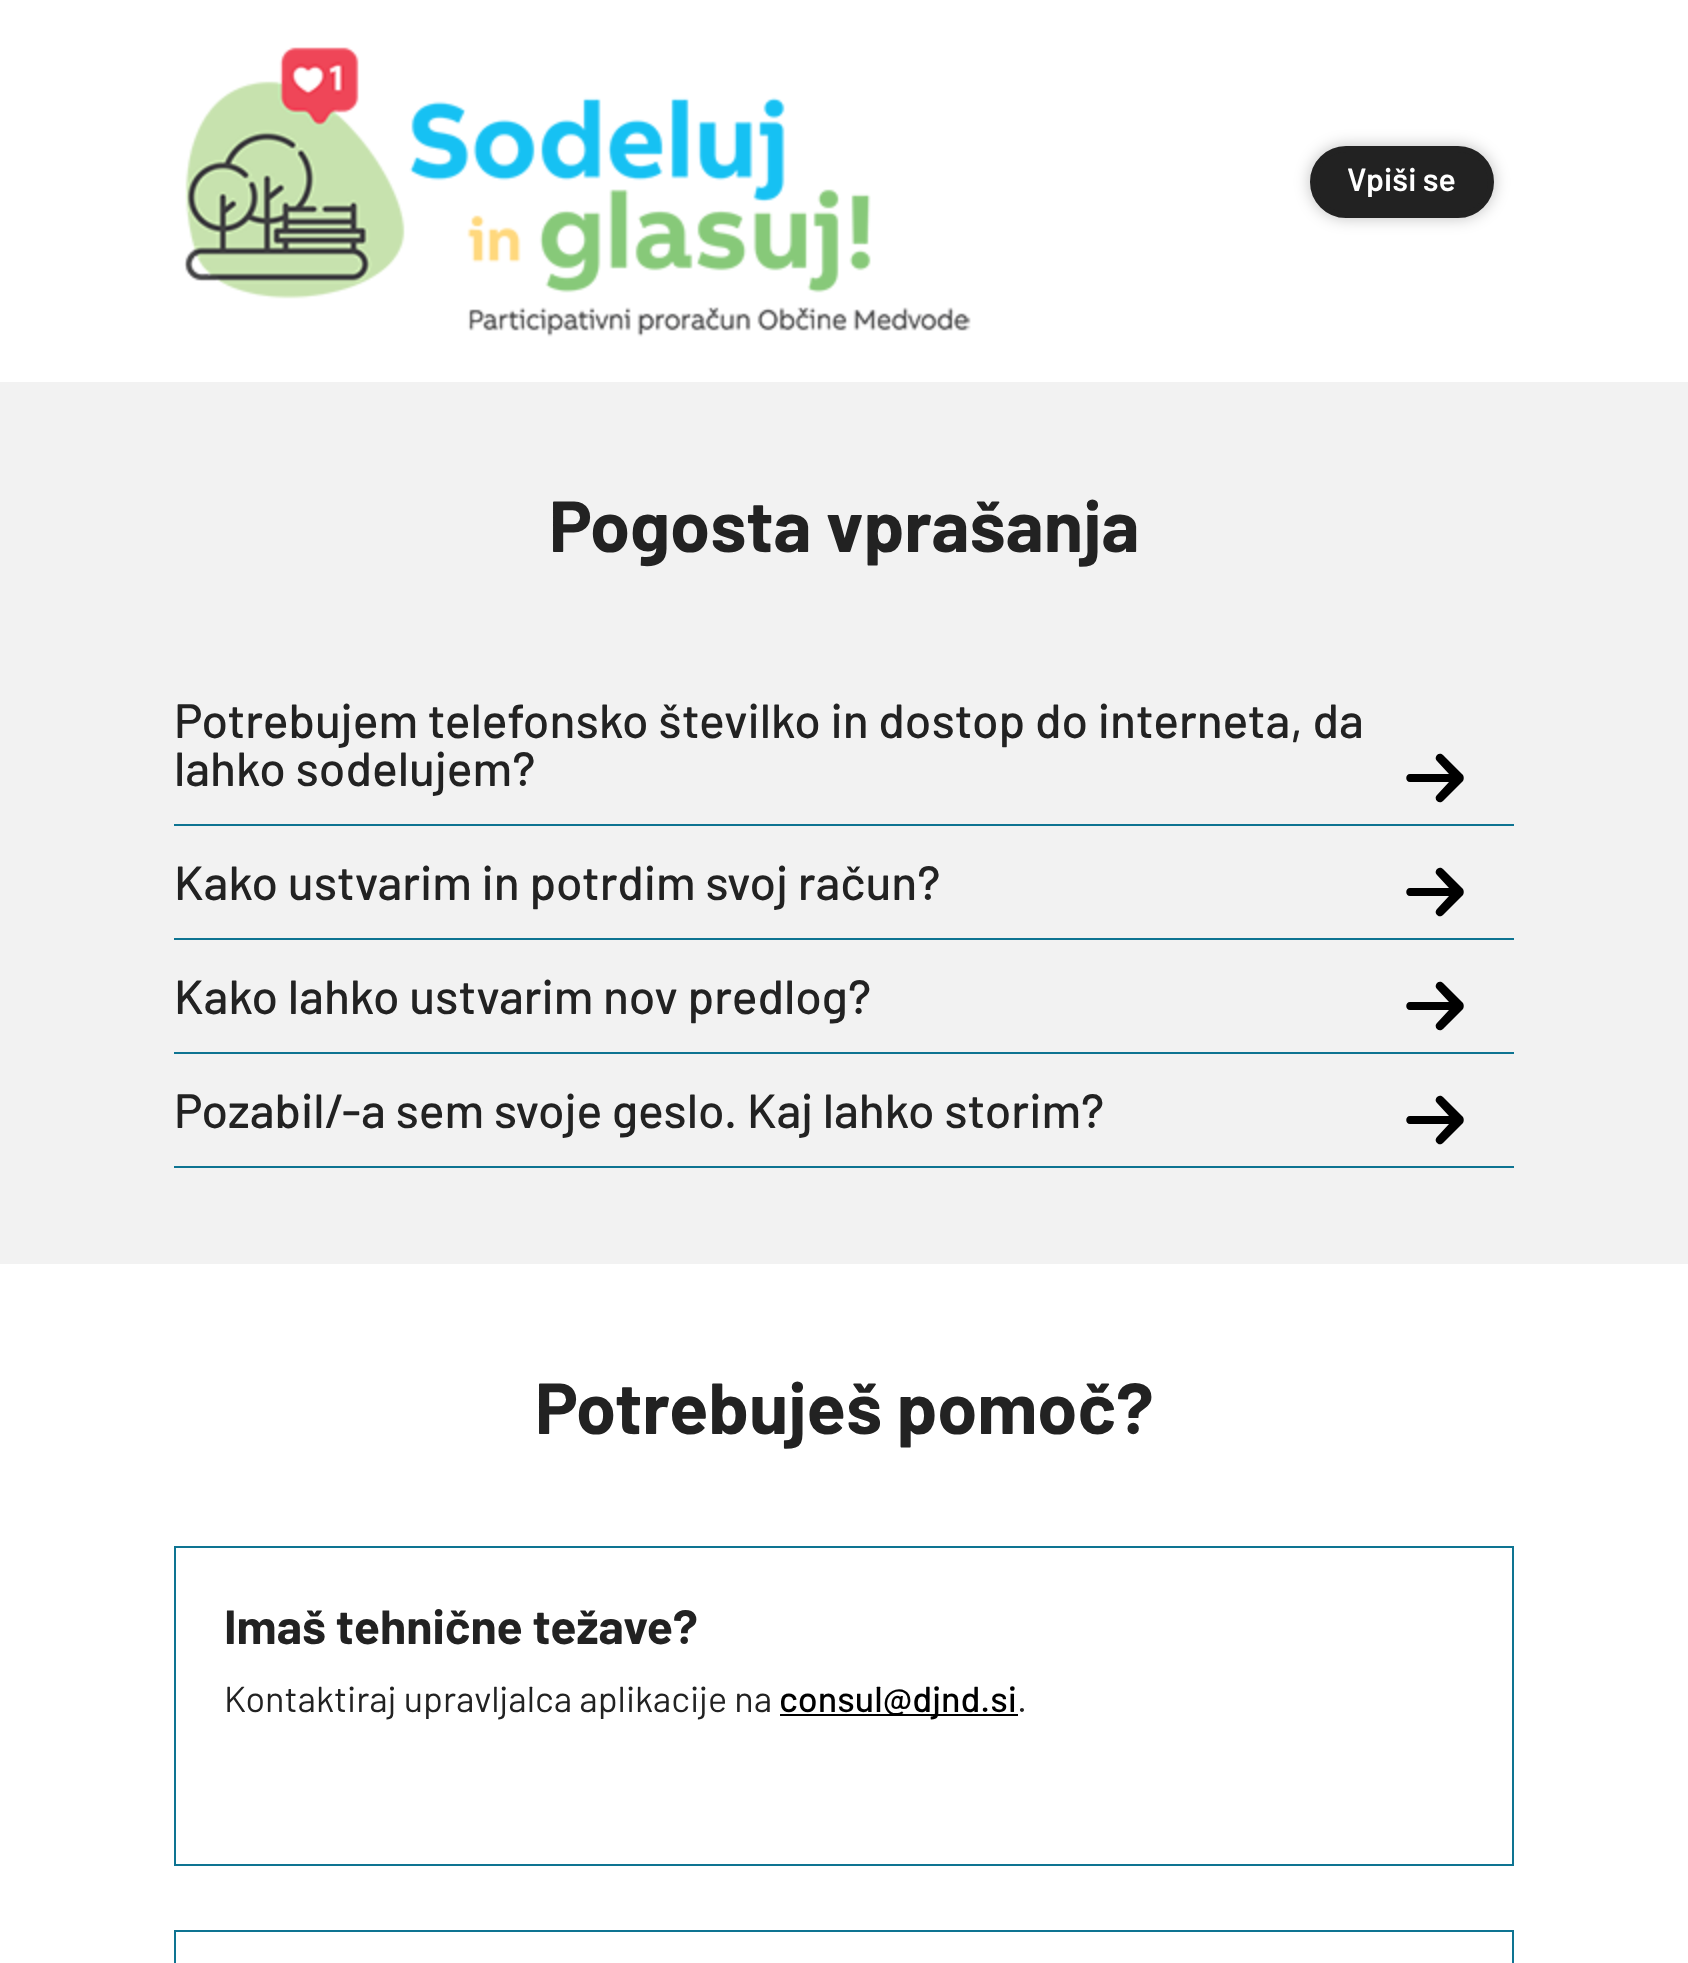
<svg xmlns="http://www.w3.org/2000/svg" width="1688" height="1963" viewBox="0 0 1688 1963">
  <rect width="100%" height="100%" fill="rgb(255,255,255)"/>
  <image x="184" y="47" width="787" height="290" href="pic1.png"/>
  <rect x="1310" y="146" width="184" height="72" rx="36" fill="rgba(0,0,0,0.25)" filter="blur(8px)"/>
  <rect x="1313" y="149" width="178" height="66" rx="33" fill="rgb(34,34,34)" stroke="rgb(34,34,34)" stroke-width="6"/>
  <text x="1347" y="191" font-family="Barlow" font-size="32" font-weight="600" fill="rgb(255,255,255)">Vpiši se</text>
  <rect x="0" y="382" width="1688" height="882" fill="rgb(242,242,242)"/>
  <text x="549" y="552" font-family="Barlow" font-size="72" font-weight="bold" fill="rgb(34,34,34)">Pogosta vprašanja</text>
  <rect x="174" y="824" width="1340" height="2" fill="rgb(14,116,146)"/>
  <g font-family="Barlow" font-size="48" font-weight="500" fill="rgb(34,34,34)">
    <text>
      <tspan x="174" y="738">Potrebujem telefonsko številko in dostop do interneta, da</tspan>
      <tspan x="174" y="786">lahko sodelujem?</tspan>
    </text>
  </g>
  <path d="M1449 782H1410C1405 782 1405 774 1410 774H1449L1437 761C1433 757 1439 751 1443 755L1463 775C1464 777 1464 779 1463 781L1443 801C1439 805 1433 799 1437 795Z" fill="rgb(0,0,0)" fill-rule="evenodd"/>
  <rect x="174" y="938" width="1340" height="2" fill="rgb(14,116,146)"/>
  <text x="174" y="900" font-family="Barlow" font-size="48" font-weight="500" fill="rgb(34,34,34)">Kako ustvarim in potrdim svoj račun?</text>
  <path d="M1449 896H1410C1405 896 1405 888 1410 888H1449L1437 875C1433 871 1439 865 1443 869L1463 889C1464 891 1464 893 1463 895L1443 915C1439 919 1433 913 1437 909Z" fill="rgb(0,0,0)" fill-rule="evenodd"/>
  <rect x="174" y="1052" width="1340" height="2" fill="rgb(14,116,146)"/>
  <text x="174" y="1014" font-family="Barlow" font-size="48" font-weight="500" fill="rgb(34,34,34)">Kako lahko ustvarim nov predlog?</text>
  <path d="M1449 1010H1410C1405 1010 1405 1002 1410 1002H1449L1437 989C1433 985 1439 979 1443 983L1463 1003C1464 1005 1464 1007 1463 1009L1443 1029C1439 1033 1433 1027 1437 1023Z" fill="rgb(0,0,0)" fill-rule="evenodd"/>
  <rect x="174" y="1166" width="1340" height="2" fill="rgb(14,116,146)"/>
  <text x="174" y="1128" font-family="Barlow" font-size="48" font-weight="500" fill="rgb(34,34,34)">Pozabil/-a sem svoje geslo. Kaj lahko storim?</text>
  <path d="M1449 1124H1410C1405 1124 1405 1116 1410 1116H1449L1437 1103C1433 1099 1439 1093 1443 1097L1463 1117C1464 1119 1464 1121 1463 1123L1443 1143C1439 1147 1433 1141 1437 1137Z" fill="rgb(0,0,0)" fill-rule="evenodd"/>
  <text x="535" y="1434" font-family="Barlow" font-size="72" font-weight="bold" fill="rgb(34,34,34)">Potrebuješ pomoč?</text>
  <rect x="175" y="1547" width="1338" height="318" fill="none" stroke="rgb(14,116,146)" stroke-width="2"/>
  <text x="224" y="1644" font-family="Barlow" font-size="48" font-weight="bold" fill="rgb(34,34,34)">Imaš tehnične težave?</text>
  <text x="224" y="1712" font-family="Barlow" font-size="36" fill="rgb(34,34,34)">Kontaktiraj upravljalca aplikacije na</text>
  <rect x="780" y="1714" width="238" height="2" fill="rgb(0,0,0)"/>
  <text x="779" y="1712" font-family="Barlow" font-size="36" font-weight="500" fill="rgb(0,0,0)">consul@djnd.si</text>
  <text x="1017" y="1712" font-family="Barlow" font-size="36" fill="rgb(34,34,34)">.</text>
  <rect x="175" y="1931" width="1338" height="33" fill="none" stroke="rgb(14,116,146)" stroke-width="2"/>
</svg>
